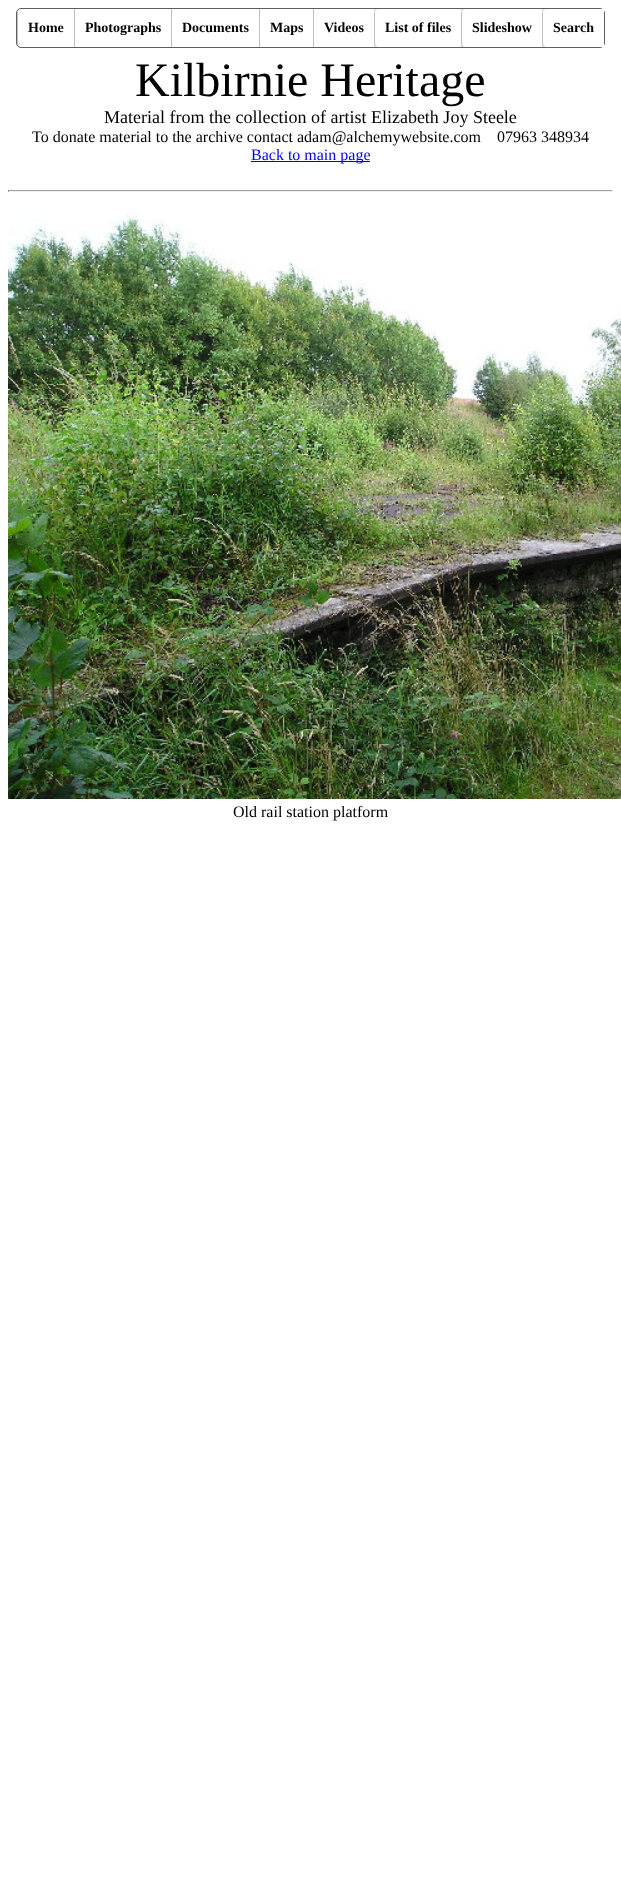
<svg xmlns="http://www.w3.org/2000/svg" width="621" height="1884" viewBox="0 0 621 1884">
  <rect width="100%" height="100%" fill="rgb(255,255,255)"/>
  <rect x="16.5" y="8.5" width="588" height="39" rx="4.5" fill="rgb(222,222,222)" stroke="rgb(95,95,95)"/>
  <path d="M22 9H74V47H22C20 47 18 45 18 42V14C18 11 20 9 22 9Z" fill="rgb(255,255,255)"/>
  <image x="17" y="9" width="4" height="31" href="pic1.png"/>
  <rect x="17" y="12" width="1" height="33" fill="rgb(192,192,192)"/>
  <text x="28" y="32" font-family="Liberation Serif" font-size="14" font-weight="bold" fill="rgb(0,0,0)">Home</text>
  <rect x="75" y="9" width="96" height="38" fill="rgb(255,255,255)"/>
  <rect x="74" y="9" width="1" height="38" fill="rgb(192,192,192)"/>
  <text x="85" y="32" font-family="Liberation Serif" font-size="14" font-weight="bold" fill="rgb(0,0,0)">Photographs</text>
  <rect x="172" y="9" width="87" height="38" fill="rgb(255,255,255)"/>
  <rect x="171" y="9" width="1" height="38" fill="rgb(192,192,192)"/>
  <text x="182" y="32" font-family="Liberation Serif" font-size="14" font-weight="bold" fill="rgb(0,0,0)">Documents</text>
  <rect x="260" y="9" width="53" height="38" fill="rgb(255,255,255)"/>
  <rect x="259" y="9" width="1" height="38" fill="rgb(192,192,192)"/>
  <text x="270" y="32" font-family="Liberation Serif" font-size="14" font-weight="bold" fill="rgb(0,0,0)">Maps</text>
  <rect x="314" y="9" width="60" height="38" fill="rgb(255,255,255)"/>
  <rect x="313" y="9" width="1" height="38" fill="rgb(192,192,192)"/>
  <text x="324" y="32" font-family="Liberation Serif" font-size="14" font-weight="bold" fill="rgb(0,0,0)">Videos</text>
  <path d="M379 9H461V47H379C377 47 375 45 375 42V14C375 11 377 9 379 9Z" fill="rgb(255,255,255)"/>
  <image x="374" y="9" width="4" height="31" href="pic2.png"/>
  <rect x="374" y="12" width="1" height="33" fill="rgb(192,192,192)"/>
  <text x="385" y="32" font-family="Liberation Serif" font-size="14" font-weight="bold" fill="rgb(0,0,0)">List of files</text>
  <path d="M466 9H542V47H466C464 47 462 45 462 42V14C462 11 464 9 466 9Z" fill="rgb(255,255,255)"/>
  <image x="461" y="9" width="4" height="31" href="pic2.png"/>
  <rect x="461" y="12" width="1" height="33" fill="rgb(192,192,192)"/>
  <text x="472" y="32" font-family="Liberation Serif" font-size="14" font-weight="bold" fill="rgb(0,0,0)">Slideshow</text>
  <path d="M547 9H604V47H547C545 47 543 45 543 42V14C543 11 545 9 547 9Z" fill="rgb(255,255,255)"/>
  <image x="542" y="9" width="4" height="31" href="pic2.png"/>
  <rect x="542" y="12" width="1" height="33" fill="rgb(192,192,192)"/>
  <text x="553" y="32" font-family="Liberation Serif" font-size="14" font-weight="bold" fill="rgb(0,0,0)">Search</text>
  <text x="135" y="96" font-family="Liberation Serif" font-size="48" fill="rgb(0,0,0)">Kilbirnie Heritage</text>
  <text x="104" y="123" font-family="Liberation Serif" font-size="18" fill="rgb(0,0,0)">Material from the collection of artist Elizabeth Joy Steele</text>
  <text x="32" y="142" font-family="Liberation Serif" font-size="16" fill="rgb(0,0,0)" xml:space="preserve">To donate material to the archive contact adam@alchemywebsite.com    07963 348934</text>
  <rect x="251" y="161" width="119" height="1" fill="rgb(0,0,238)"/>
  <text x="251" y="160" font-family="Liberation Serif" font-size="16" fill="rgb(0,0,238)">Back to main page</text>
  <rect x="8" y="190" width="605" height="1" fill="rgb(159,159,159)"/>
  <rect x="612" y="190" width="1" height="2" fill="rgb(238,238,238)"/>
  <rect x="8" y="191" width="605" height="1" fill="rgb(238,238,238)"/>
  <rect x="8" y="190" width="1" height="2" fill="rgb(159,159,159)"/>
  <image x="8" y="210" width="613" height="589" href="pic3.png"/>
  <text x="233" y="817" font-family="Liberation Serif" font-size="16" fill="rgb(0,0,0)">Old rail station platform</text>
</svg>
